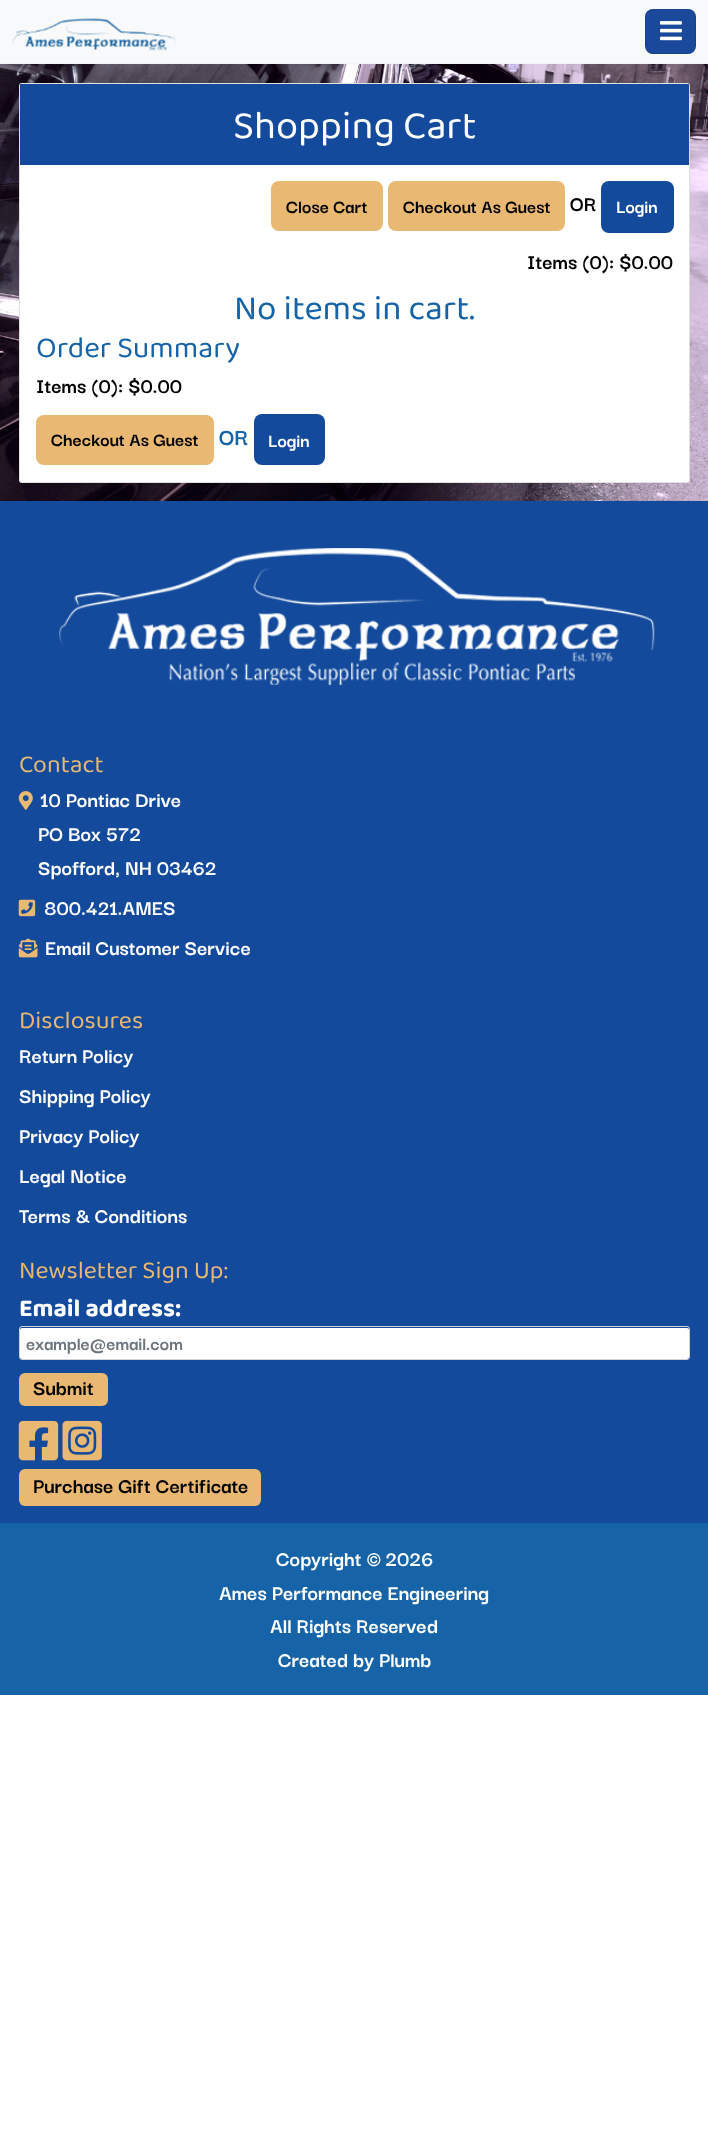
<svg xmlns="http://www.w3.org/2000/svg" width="708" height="2133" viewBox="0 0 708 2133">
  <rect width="100%" height="100%" fill="rgb(255,255,255)"/>
  <rect x="0" y="0" width="708" height="63" fill="rgb(248,249,250)"/>
  <rect x="0" y="63" width="708" height="1" fill="rgb(243,243,243)"/>
  <image x="12" y="18" width="164" height="33" href="pic1.png"/>
  <rect x="645" y="9" width="51" height="45" rx="8" fill="rgb(26,73,156)"/>
  <rect x="645.5" y="9.5" width="50" height="44" rx="7.5" fill="none" stroke="rgba(0,0,0,0.1)"/>
  <image x="660" y="21" width="22" height="20" href="pic2.png"/>
  <image x="0" y="64" width="708" height="437" href="pic3.png"/>
  <rect x="19" y="83" width="671" height="400" rx="3" fill="rgb(255,255,255)"/>
  <rect x="19.5" y="83.5" width="670" height="399" rx="2.5" fill="none" stroke="rgba(0,0,0,0.12)"/>
  <rect x="20" y="84" width="669" height="81" fill="rgb(19,74,156)"/>
  <text x="233" y="138" font-family="'Baloo Chettan 2'" font-size="40" fill="rgb(255,255,255)">Shopping Cart</text>
  <rect x="271" y="181" width="112" height="50" rx="8" fill="rgb(233,184,114)"/>
  <text x="286" y="213" font-family="Darker Grotesque" font-size="20" font-weight="bold" fill="rgb(0,0,0)">Close Cart</text>
  <rect x="388" y="181" width="177" height="50" rx="8" fill="rgb(233,184,114)"/>
  <text x="403" y="213" font-family="Darker Grotesque" font-size="20" font-weight="bold" fill="rgb(0,0,0)">Checkout As Guest</text>
  <text x="570" y="211" font-family="Darker Grotesque" font-size="22.5" font-weight="bold" fill="rgb(0,0,0)">OR</text>
  <rect x="601" y="181" width="73" height="52" rx="8" fill="rgb(19,74,156)"/>
  <text x="616" y="213" font-family="Darker Grotesque" font-size="20" font-weight="bold" fill="rgb(255,255,255)">Login</text>
  <text x="527" y="269" font-family="Darker Grotesque" font-size="22.5" font-weight="bold" fill="rgb(0,0,0)">Items (0): $0.00</text>
  <text x="234" y="319" font-family="'Baloo Chettan 2'" font-size="35" fill="rgb(22,100,167)">No items in cart.</text>
  <text x="36" y="357" font-family="'Baloo Chettan 2'" font-size="30" fill="rgb(22,100,167)">Order Summary</text>
  <text x="36" y="393" font-family="Darker Grotesque" font-size="22.5" font-weight="bold" fill="rgb(0,0,0)">Items (0): $0.00</text>
  <rect x="36" y="415" width="178" height="50" rx="8" fill="rgb(233,184,114)"/>
  <text x="51" y="446" font-family="Darker Grotesque" font-size="20" font-weight="bold" fill="rgb(0,0,0)">Checkout As Guest</text>
  <text x="219" y="445" font-family="Darker Grotesque" font-size="25" font-weight="bold" fill="rgb(22,100,167)">OR</text>
  <rect x="254" y="414" width="71" height="51" rx="8" fill="rgb(19,74,156)"/>
  <text x="268" y="447" font-family="Darker Grotesque" font-size="20" font-weight="bold" fill="rgb(255,255,255)">Login</text>
  <rect x="0" y="501" width="708" height="1022" fill="rgb(19,74,156)"/>
  <image x="59" y="548" width="596" height="137" href="pic4.png"/>
  <text x="19" y="772" font-family="'Baloo Chettan 2'" font-size="25" fill="rgb(233,184,114)">Contact</text>
  <image x="18" y="791" width="15" height="19" href="pic5.png"/>
  <g font-family="Darker Grotesque" font-size="22.5" font-weight="bold" fill="rgb(255,255,255)">
    <text x="40" y="807">10 Pontiac Drive</text>
    <text>
      <tspan x="38" y="841">PO Box 572</tspan>
      <tspan x="38" y="875">Spofford, NH 03462</tspan>
    </text>
  </g>
  <image x="18" y="899" width="18" height="18" href="pic6.png"/>
  <text x="44" y="915" font-family="Darker Grotesque" font-size="22.5" font-weight="bold" fill="rgb(255,255,255)">800.421.AMES</text>
  <image x="18" y="938" width="20" height="20" href="pic7.png"/>
  <text x="45" y="955" font-family="Darker Grotesque" font-size="22.5" font-weight="bold" fill="rgb(255,255,255)">Email Customer Service</text>
  <text x="19" y="1028" font-family="'Baloo Chettan 2'" font-size="25" fill="rgb(233,184,114)">Disclosures</text>
  <g font-family="Darker Grotesque" font-size="22.5" font-weight="bold" fill="rgb(255,255,255)">
    <text>
      <tspan x="19" y="1063">Return Policy</tspan>
      <tspan x="19" y="1103">Shipping Policy</tspan>
      <tspan x="19" y="1143">Privacy Policy</tspan>
      <tspan x="19" y="1183">Legal Notice</tspan>
      <tspan x="19" y="1223">Terms &amp; Conditions</tspan>
    </text>
  </g>
  <text x="19" y="1278" font-family="'Baloo Chettan 2'" font-size="25" fill="rgb(233,184,114)">Newsletter Sign Up:</text>
  <text x="19" y="1316" font-family="'Baloo Chettan 2'" font-size="25" font-weight="bold" fill="rgb(255,255,255)">Email address:</text>
  <rect x="20" y="1328" width="669" height="31" rx="2" fill="rgb(255,255,255)"/>
  <rect x="19.5" y="1326.5" width="670" height="33" rx="2.5" fill="none" stroke="rgb(206,212,218)"/>
  <text x="26" y="1350" font-family="Darker Grotesque" font-size="20" font-weight="bold" fill="rgb(108,117,125)">example@email.com</text>
  <rect x="19" y="1373" width="89" height="33" rx="6" fill="rgb(233,184,114)"/>
  <text x="33" y="1395" font-family="Darker Grotesque" font-size="22.5" font-weight="bold" fill="rgb(0,0,0)">Submit</text>
  <image x="18" y="1420" width="41" height="41" href="pic8.png"/>
  <image x="62" y="1420" width="40" height="41" href="pic9.png"/>
  <rect x="19" y="1469" width="242" height="37" rx="6" fill="rgb(233,184,114)"/>
  <text x="33" y="1493" font-family="Darker Grotesque" font-size="22.5" font-weight="bold" fill="rgb(0,0,0)">Purchase Gift Certificate</text>
  <rect x="0" y="1523" width="708" height="172" fill="rgb(22,100,167)"/>
  <g font-family="Darker Grotesque" font-size="22.5" font-weight="bold" fill="rgb(255,255,255)">
    <text x="276" y="1566">Copyright © 2026</text>
    <text x="219" y="1600">Ames Performance Engineering</text>
    <text x="270" y="1633">All Rights Reserved</text>
    <text x="278" y="1667">Created by Plumb</text>
  </g>
</svg>
